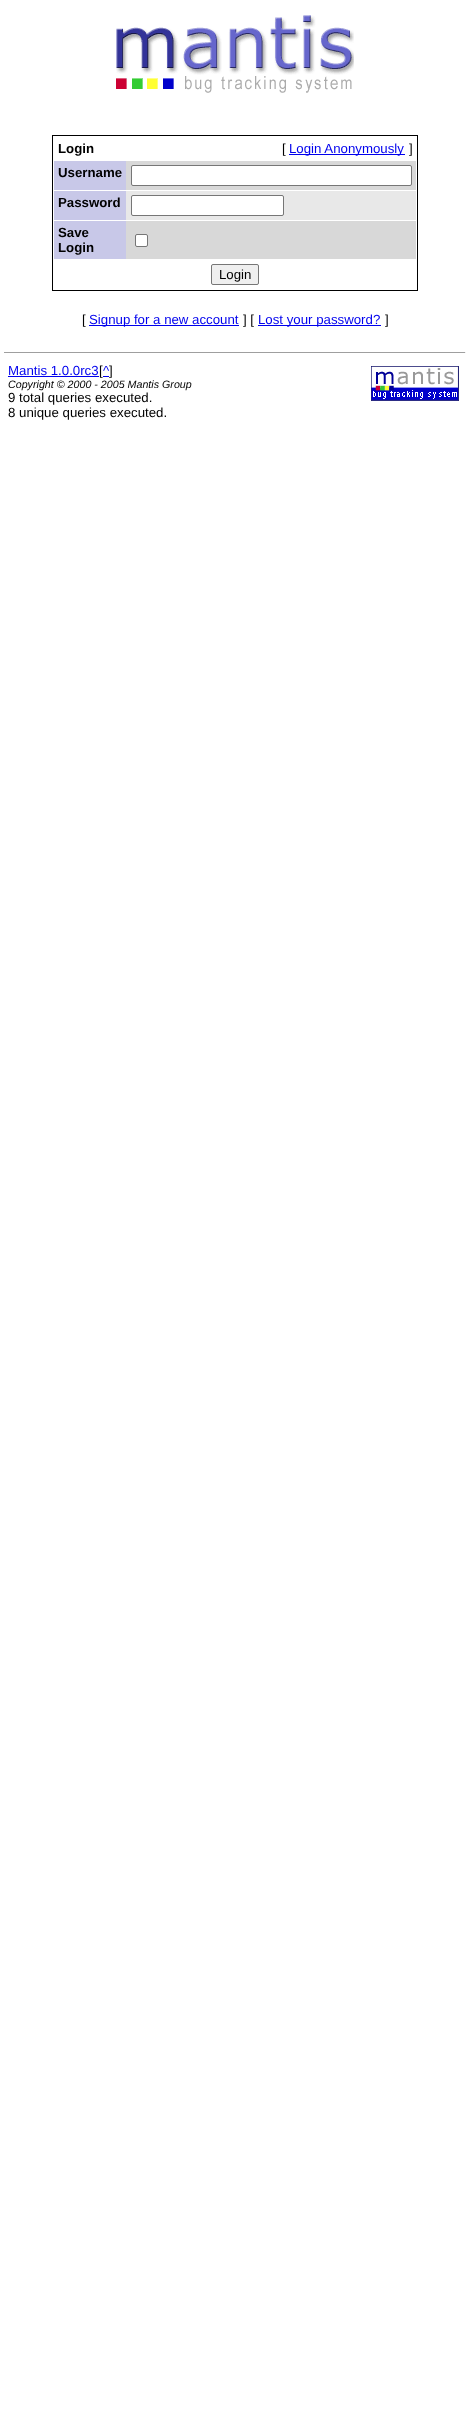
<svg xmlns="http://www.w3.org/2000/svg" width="470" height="2415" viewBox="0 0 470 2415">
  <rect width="100%" height="100%" fill="rgb(255,255,255)"/>
  <image x="116" y="15" width="238" height="78" href="pic1.png"/>
  <rect x="52.5" y="135.5" width="365" height="155" fill="none" stroke="rgb(0,0,0)"/>
  <text x="58" y="153" font-family="Liberation Sans" font-size="13.25" font-weight="bold" fill="rgb(0,0,0)">Login</text>
  <text x="282" y="153" font-family="Liberation Sans" font-size="13.25" fill="rgb(0,0,0)">[</text>
  <rect x="289" y="154" width="116" height="1" fill="rgb(0,0,238)"/>
  <text x="289" y="153" font-family="Liberation Sans" font-size="13.25" fill="rgb(0,0,238)">Login Anonymously</text>
  <text x="409" y="153" font-family="Liberation Sans" font-size="13.25" fill="rgb(0,0,0)">]</text>
  <rect x="126" y="161" width="290" height="29" fill="rgb(216,216,216)"/>
  <rect x="54" y="161" width="72" height="29" fill="rgb(200,200,232)"/>
  <text x="58" y="177" font-family="Liberation Sans" font-size="13.25" font-weight="bold" fill="rgb(0,0,0)">Username</text>
  <rect x="131.5" y="165.5" width="280" height="20" rx="1.5" fill="rgb(255,255,255)" stroke="rgb(118,118,118)"/>
  <rect x="126" y="191" width="290" height="29" fill="rgb(232,232,232)"/>
  <rect x="54" y="191" width="72" height="29" fill="rgb(200,200,232)"/>
  <text x="58" y="207" font-family="Liberation Sans" font-size="13.25" font-weight="bold" fill="rgb(0,0,0)">Password</text>
  <rect x="131.5" y="195.5" width="152" height="20" rx="1.5" fill="rgb(255,255,255)" stroke="rgb(118,118,118)"/>
  <rect x="126" y="221" width="290" height="38" fill="rgb(216,216,216)"/>
  <rect x="54" y="221" width="72" height="38" fill="rgb(200,200,232)"/>
  <g font-family="Liberation Sans" font-size="13.25" font-weight="bold" fill="rgb(0,0,0)">
    <text>
      <tspan x="58" y="237">Save</tspan>
      <tspan x="58" y="252">Login</tspan>
    </text>
  </g>
  <rect x="135.5" y="234.5" width="12" height="12" rx="1.5" fill="rgb(255,255,255)" stroke="rgb(118,118,118)"/>
  <rect x="211.5" y="264.5" width="47" height="20" rx="1.5" fill="rgb(239,239,239)" stroke="rgb(118,118,118)"/>
  <g font-family="Liberation Sans" font-size="13.25" fill="rgb(0,0,0)">
    <text x="219" y="279">Login</text>
    <text x="82" y="324">[</text>
  </g>
  <rect x="89" y="325" width="150" height="1" fill="rgb(0,0,238)"/>
  <text x="89" y="324" font-family="Liberation Sans" font-size="13.25" fill="rgb(0,0,238)">Signup for a new account</text>
  <text x="243" y="324" font-family="Liberation Sans" font-size="13.25" fill="rgb(0,0,0)">] [</text>
  <rect x="258" y="325" width="123" height="1" fill="rgb(0,0,238)"/>
  <text x="258" y="324" font-family="Liberation Sans" font-size="13.25" fill="rgb(0,0,238)">Lost your password?</text>
  <text x="385" y="324" font-family="Liberation Sans" font-size="13.25" fill="rgb(0,0,0)">]</text>
  <rect x="4" y="352" width="462" height="1" fill="rgb(159,159,159)"/>
  <rect x="465" y="352" width="1" height="1" fill="rgb(238,238,238)"/>
  <text x="8" y="375" font-family="Liberation Sans" font-size="13.25" fill="rgb(0,0,238)">Mantis 1.0.0rc3</text>
  <text x="99" y="375" font-family="Liberation Sans" font-size="13.25" fill="rgb(0,0,0)">[</text>
  <rect x="8" y="376" width="91" height="1" fill="rgb(0,0,238)"/>
  <rect x="103" y="376" width="6" height="1" fill="rgb(0,0,238)"/>
  <text x="103" y="375" font-family="Liberation Sans" font-size="13.25" fill="rgb(0,0,238)">^</text>
  <text x="109" y="375" font-family="Liberation Sans" font-size="13.25" fill="rgb(0,0,0)">]</text>
  <text x="8" y="388" font-family="Liberation Sans" font-size="10.7" font-style="italic" fill="rgb(0,0,0)">Copyright © 2000 - 2005 Mantis Group</text>
  <g font-family="Liberation Sans" font-size="13.25" fill="rgb(0,0,0)">
    <text>
      <tspan x="8" y="402">9 total queries executed.</tspan>
      <tspan x="8" y="417">8 unique queries executed.</tspan>
    </text>
  </g>
  <image x="371" y="366" width="88" height="35" href="pic2.png"/>
</svg>
